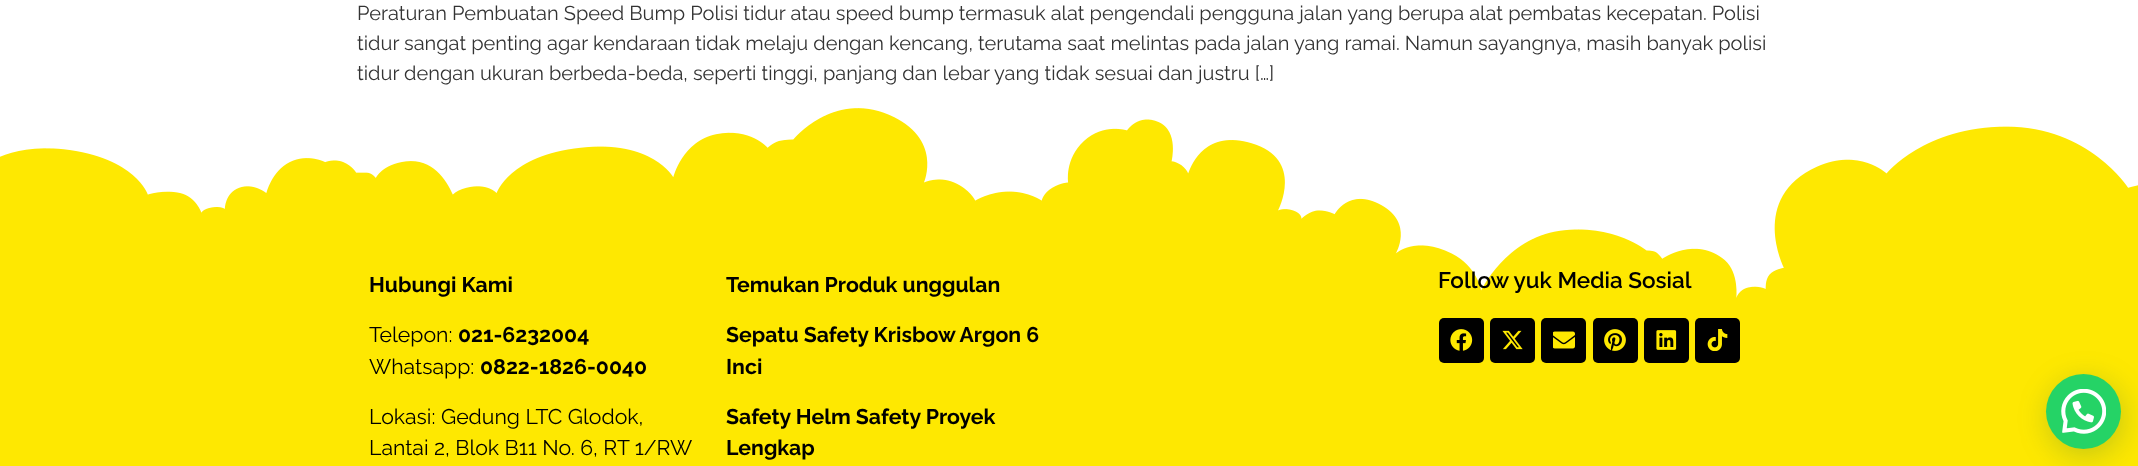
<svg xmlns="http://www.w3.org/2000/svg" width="2138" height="466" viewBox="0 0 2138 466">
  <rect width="100%" height="100%" fill="rgb(255,255,255)"/>
  <g font-family="Raleway" font-size="20" fill="rgb(51,51,51)">
    <text>
      <tspan x="357" y="20">Peraturan Pembuatan Speed Bump Polisi tidur atau speed bump termasuk alat pengendali pengguna jalan yang berupa alat pembatas kecepatan. Polisi</tspan>
      <tspan x="357" y="50">tidur sangat penting agar kendaraan tidak melaju dengan kencang, terutama saat melintas pada jalan yang ramai. Namun sayangnya, masih banyak polisi</tspan>
      <tspan x="357" y="80">tidur dengan ukuran berbeda-beda, seperti tinggi, panjang dan lebar yang tidak sesuai dan justru […]</tspan>
    </text>
  </g>
  <rect x="0" y="108" width="2138" height="358" fill="rgb(254,232,1)"/>
  <image x="0" y="108" width="2138" height="190" href="pic1.png"/>
  <text x="369" y="292" font-family="Raleway" font-size="21.25" font-weight="bold" fill="rgb(0,0,0)">Hubungi Kami</text>
  <text x="369" y="342" font-family="Raleway" font-size="21.25" fill="rgb(0,0,0)">Telepon:</text>
  <text x="458" y="342" font-family="Raleway" font-size="21.25" font-weight="bold" fill="rgb(0,0,0)">021-6232004</text>
  <text x="369" y="374" font-family="Raleway" font-size="21.25" fill="rgb(0,0,0)">Whatsapp:</text>
  <text x="480" y="374" font-family="Raleway" font-size="21.25" font-weight="bold" fill="rgb(0,0,0)">0822-1826-0040</text>
  <g font-family="Raleway" font-size="21.25" fill="rgb(0,0,0)">
    <text>
      <tspan x="369" y="424">Lokasi: Gedung LTC Glodok,</tspan>
      <tspan x="369" y="455">Lantai 2, Blok B11 No. 6, RT 1/RW</tspan>
    </text>
  </g>
  <g font-family="Raleway" font-size="21.25" font-weight="bold" fill="rgb(0,0,0)">
    <text x="726" y="292">Temukan Produk unggulan</text>
    <text>
      <tspan x="726" y="342">Sepatu Safety Krisbow Argon 6</tspan>
      <tspan x="726" y="374">Inci</tspan>
    </text>
    <text>
      <tspan x="726" y="424">Safety Helm Safety Proyek</tspan>
      <tspan x="726" y="455">Lengkap</tspan>
    </text>
  </g>
  <text x="1438" y="288" font-family="Raleway" font-size="22.5" font-weight="600" fill="rgb(0,0,0)">Follow yuk Media Sosial</text>
  <rect x="1439" y="318" width="45" height="45" rx="5" fill="rgb(0,0,0)"/>
  <image x="1450" y="329" width="23" height="22" href="pic2.png"/>
  <rect x="1490" y="318" width="45" height="45" rx="5" fill="rgb(0,0,0)"/>
  <image x="1502" y="330" width="21" height="20" href="pic3.png"/>
  <rect x="1541" y="318" width="45" height="45" rx="5" fill="rgb(0,0,0)"/>
  <image x="1553" y="331" width="22" height="18" href="pic4.png"/>
  <rect x="1593" y="318" width="45" height="45" rx="5" fill="rgb(0,0,0)"/>
  <image x="1604" y="329" width="22" height="22" href="pic5.png"/>
  <rect x="1644" y="318" width="45" height="45" rx="5" fill="rgb(0,0,0)"/>
  <image x="1656" y="330" width="21" height="20" href="pic6.png"/>
  <rect x="1695" y="318" width="45" height="45" rx="5" fill="rgb(0,0,0)"/>
  <image x="1707" y="329" width="21" height="22" href="pic7.png"/>
  <rect x="2048" y="381" width="75" height="75" rx="37.5" fill="rgba(7,94,84,0.24)" filter="blur(15px)"/>
  <circle cx="2083.5" cy="411.5" r="37.5" fill="rgb(37,211,102)"/>
  <image x="2061" y="389" width="45" height="45" href="pic8.png"/>
</svg>
